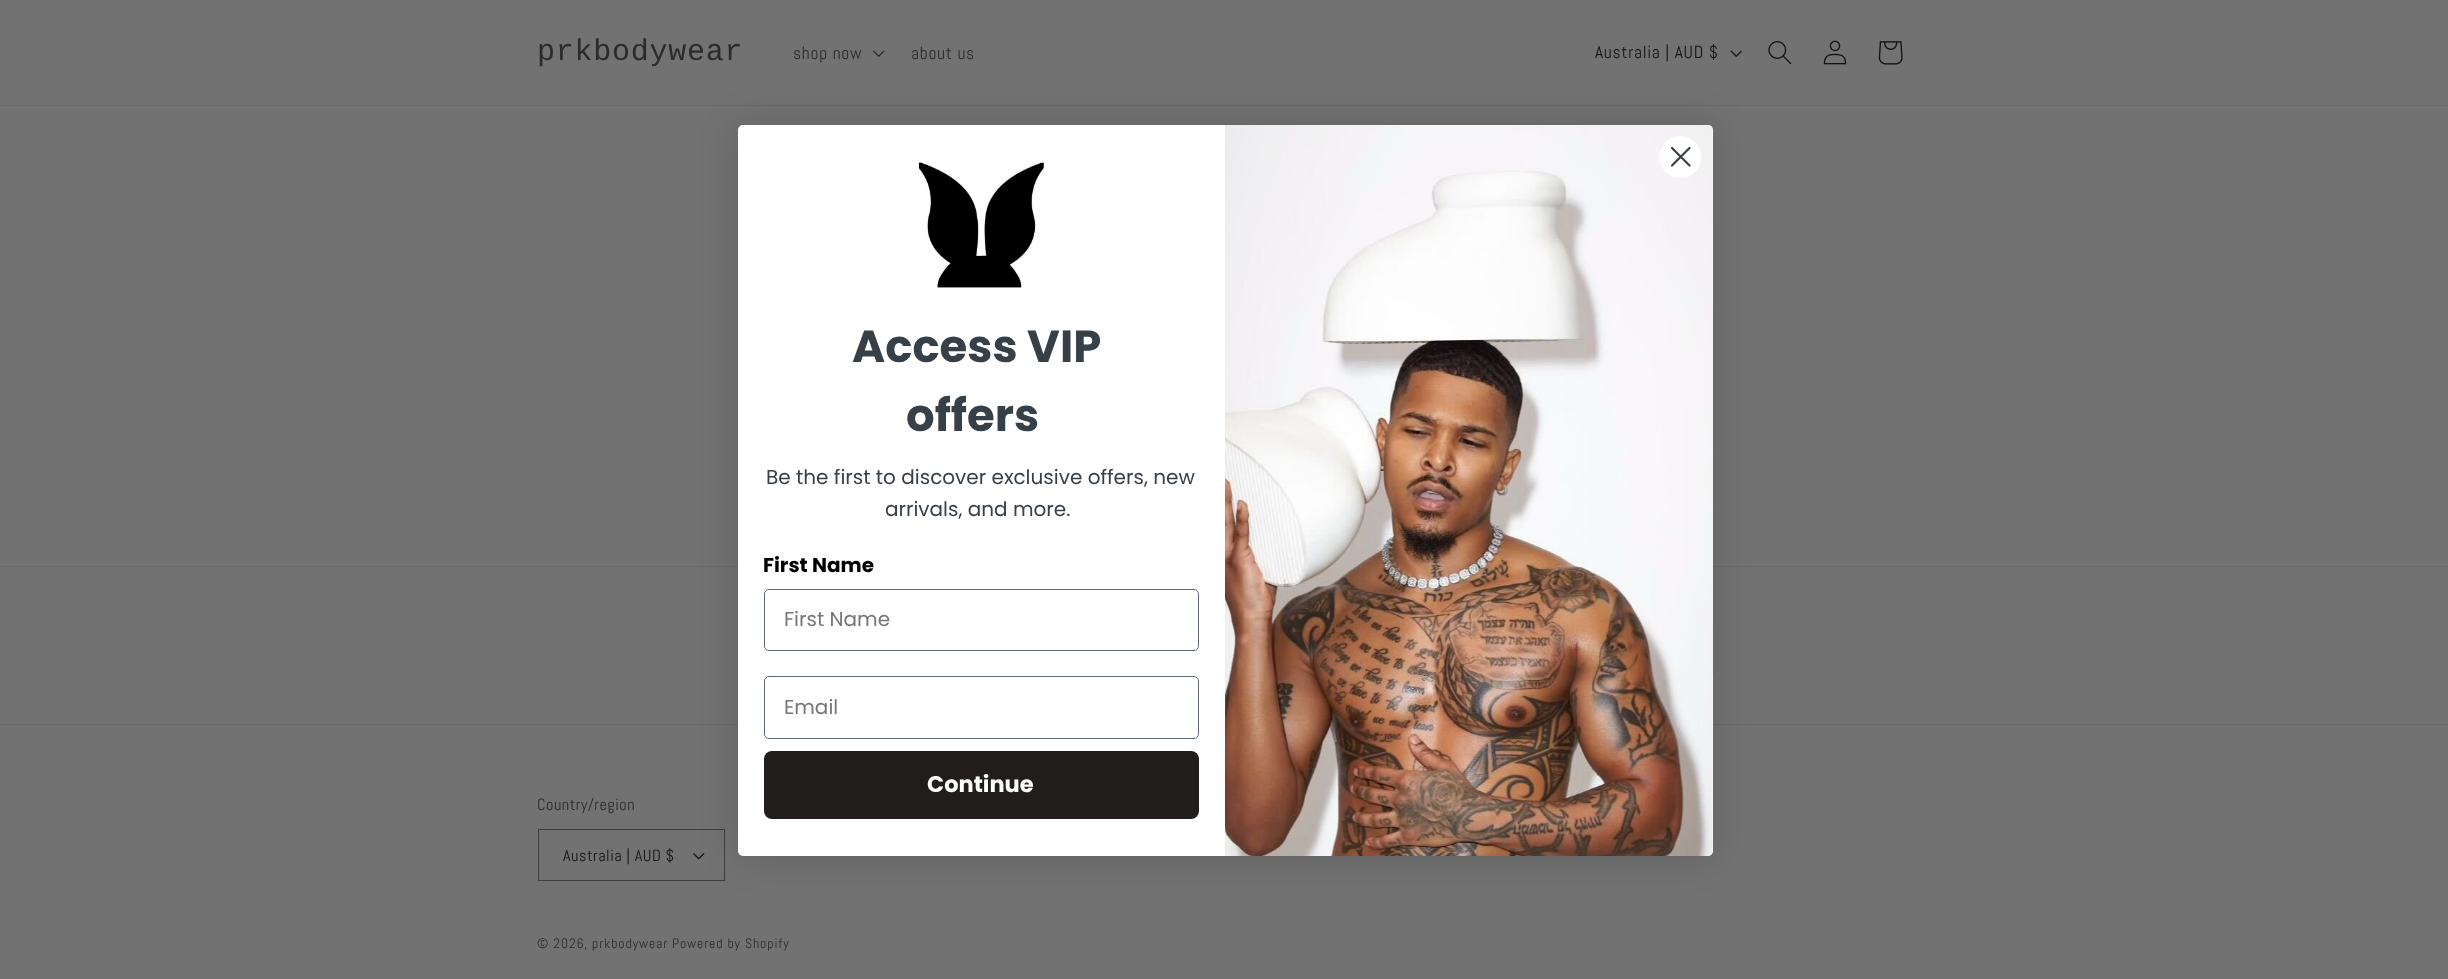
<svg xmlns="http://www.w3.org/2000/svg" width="2448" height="979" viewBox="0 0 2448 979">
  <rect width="100%" height="100%" fill="rgb(114,114,114)"/>
  <rect x="0" y="105" width="2448" height="1" fill="rgb(106,106,106)"/>
  <text x="537" y="60" font-family="Liberation Mono" font-size="30" letter-spacing="0.75" fill="rgb(43,43,43)">prkbodywear</text>
  <text x="793" y="59" font-family="Abel" font-size="17.5" letter-spacing="0.75" fill="rgb(43,43,43)">shop now</text>
  <image x="873" y="50" width="12" height="7" href="pic1.png"/>
  <text x="911" y="59" font-family="Abel" font-size="17.5" letter-spacing="0.75" fill="rgb(43,43,43)">about us</text>
  <text x="1595" y="58" font-family="Abel" font-size="17.5" letter-spacing="0.75" fill="rgb(19,19,19)">Australia | AUD $</text>
  <image x="1730" y="50" width="12" height="7" href="pic2.png"/>
  <image x="1768" y="41" width="24" height="24" href="pic3.png"/>
  <image x="1823" y="40" width="24" height="25" href="pic4.png"/>
  <image x="1878" y="41" width="25" height="24" href="pic5.png"/>
  <rect x="0" y="566" width="2448" height="1" fill="rgb(106,106,106)"/>
  <rect x="0" y="724" width="2448" height="1" fill="rgb(106,106,106)"/>
  <image x="693" y="853" width="12" height="7" href="pic8.png"/>
  <rect x="538.5" y="829.5" width="186" height="51" fill="none" stroke="rgb(62,62,62)"/>
  <rect x="738" y="125" width="975" height="731" rx="5" fill="rgba(0,0,0,0.15)" filter="blur(19px)"/>
  <rect x="738" y="125" width="975" height="731" rx="5" fill="rgb(255,255,255)"/>
  <image x="1225" y="125" width="488" height="731" href="pic7.png"/>
  <circle cx="1680.5" cy="157" r="21" fill="rgb(255,255,255)"/>
  <path d="M1672 148L1689.5 165.5M1672 165.5L1689.5 148Z" fill="none" stroke="rgb(55,63,71)" stroke-width="2.2" stroke-linecap="round" stroke-linejoin="round"/>
  <image x="918" y="162" width="126" height="126" href="pic6.png"/>
  <g font-family="Poppins" font-size="45" font-weight="bold" fill="rgb(55,63,71)">
    <text x="852" y="362">Access VIP</text>
    <text x="906" y="431">offers</text>
  </g>
  <g font-family="Poppins" font-size="20" fill="rgb(55,63,71)">
    <text x="766" y="484">Be the first to discover exclusive offers, new</text>
    <text x="885" y="516">arrivals, and more.</text>
  </g>
  <text x="763" y="572" font-family="Poppins" font-size="20" font-weight="bold" fill="rgb(0,0,0)">First Name</text>
  <rect x="764.5" y="589.5" width="434" height="61" rx="4.5" fill="none" stroke="rgb(96,106,114)"/>
  <text x="784" y="626" font-family="Poppins" font-size="20" fill="rgb(118,118,118)">First Name</text>
  <rect x="764.5" y="676.5" width="434" height="62" rx="4.5" fill="none" stroke="rgb(96,106,114)"/>
  <text x="784" y="714" font-family="Poppins" font-size="20" fill="rgb(118,118,118)">Email</text>
  <rect x="764" y="751" width="435" height="68" rx="8" fill="rgb(33,29,28)"/>
  <text x="927" y="792" font-family="Poppins" font-size="22.5" font-weight="bold" fill="rgb(255,255,255)">Continue</text>
  <text x="537" y="810" font-family="Abel" font-size="16.25" letter-spacing="0.5" fill="rgb(43,43,43)">Country/region</text>
  <text x="563" y="861" font-family="Abel" font-size="16.25" letter-spacing="0.5" fill="rgb(19,19,19)">Australia | AUD $</text>
  <g font-family="Abel" font-size="13.75" letter-spacing="0.9" fill="rgb(43,43,43)">
    <text x="537" y="948">© 2026, prkbodywear</text>
    <text x="672" y="948">Powered by Shopify</text>
  </g>
</svg>
